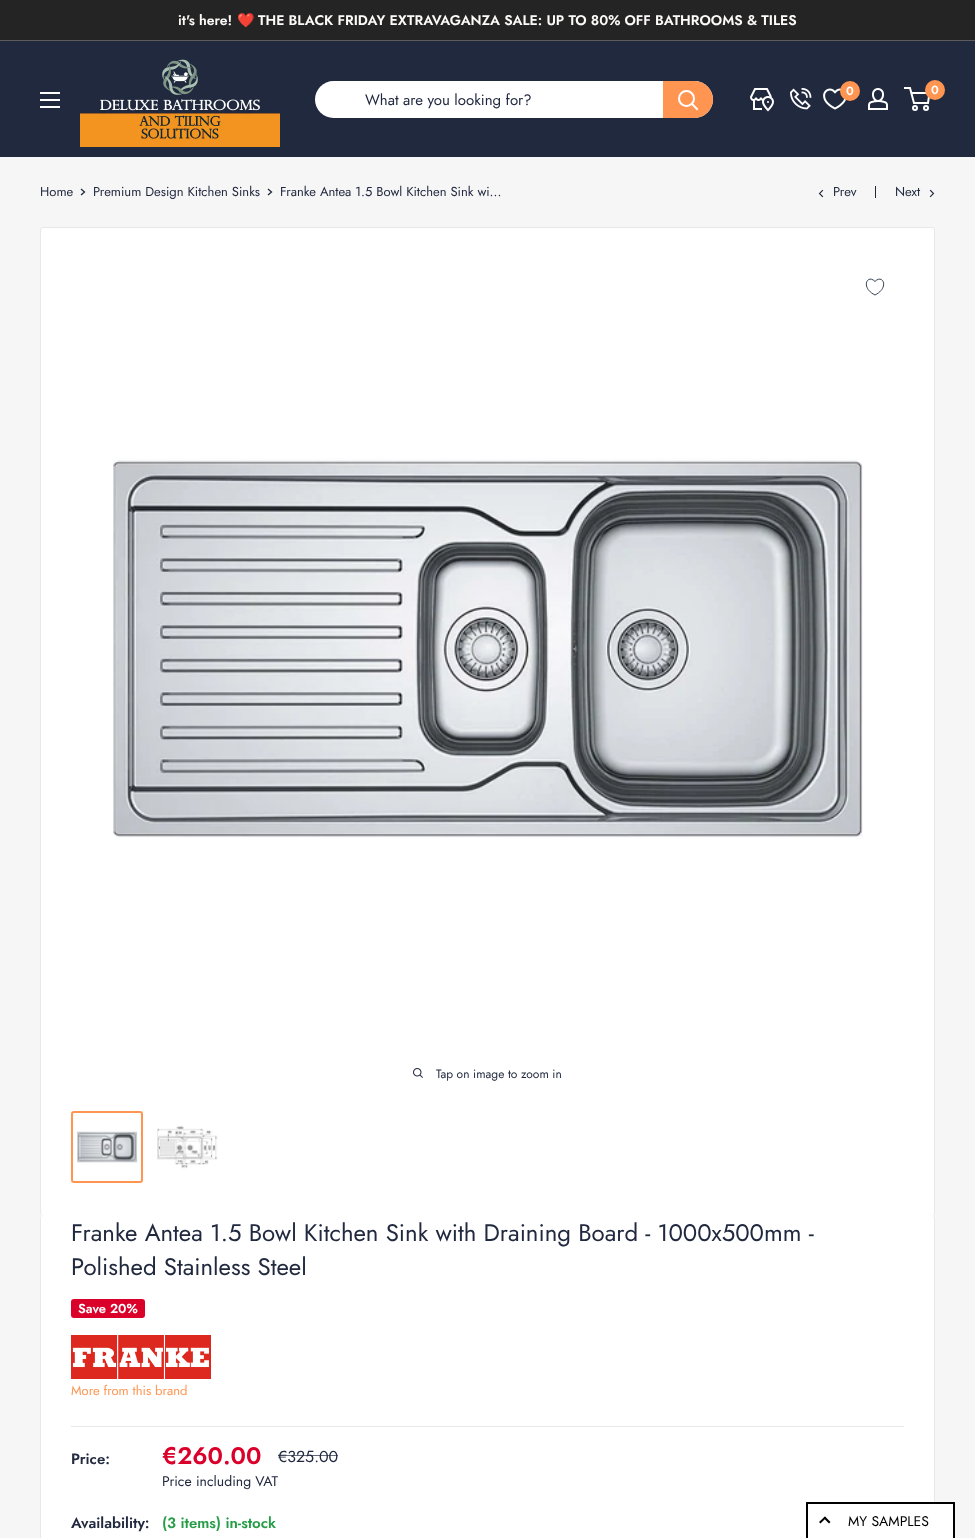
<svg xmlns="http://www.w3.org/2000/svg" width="975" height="1538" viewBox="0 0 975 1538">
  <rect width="100%" height="100%" fill="rgb(246,246,246)"/>
  <rect x="0" y="0" width="975" height="40" fill="rgb(36,36,36)"/>
  <rect x="0" y="40" width="975" height="1" fill="rgb(95,93,92)"/>
  <text x="178" y="25" font-family="Jost" font-size="14" font-weight="600" fill="rgb(253,251,249)">it's here!</text>
  <text x="237" y="25" font-family="Noto Color Emoji" font-size="14" font-weight="bold" fill="rgb(253,251,249)">❤️</text>
  <text x="258" y="25" font-family="Jost" font-size="14" font-weight="600" fill="rgb(253,251,249)">THE BLACK FRIDAY EXTRAVAGANZA SALE: UP TO 80% OFF BATHROOMS &amp; TILES</text>
  <rect x="0" y="41" width="975" height="116" fill="rgb(33,41,63)"/>
  <image x="80" y="59" width="200" height="88" href="pic1.png"/>
  <image x="750" y="88" width="24" height="24" href="pic2.png"/>
  <image x="790" y="88" width="22" height="22" href="pic3.png"/>
  <image x="823" y="88" width="23" height="22" href="pic4.png"/>
  <circle cx="850" cy="91" r="10" fill="rgb(255,149,81)"/>
  <text x="846" y="95" font-family="Jost" font-size="12" font-weight="600" fill="rgb(255,255,255)">0</text>
  <image x="868" y="88" width="20" height="22" href="pic5.png"/>
  <circle cx="915" cy="108" r="2" fill="none" stroke="rgb(255,255,255)" stroke-width="2"/>
  <circle cx="926" cy="108" r="2" fill="none" stroke="rgb(255,255,255)" stroke-width="2"/>
  <path d="M911.5 93H929.5L928 103H914L910 88H904" fill="none" stroke="rgb(255,255,255)" stroke-width="2"/>
  <circle cx="935" cy="90" r="10" fill="rgb(255,149,81)"/>
  <text x="931" y="94" font-family="Jost" font-size="12" font-weight="600" fill="rgb(255,255,255)">0</text>
  <image x="40" y="92" width="20" height="16" href="pic6.png"/>
  <rect x="315" y="81" width="398" height="37" rx="18.5" fill="rgb(255,255,255)"/>
  <text x="365" y="105" font-family="Jost" font-size="15" fill="rgb(33,41,63)">What are you looking for?</text>
  <path d="M663 81H694.5C704.5 81 713 89.5 713 99.5C713 109.5 704.5 118 694.5 118H663Z" fill="rgb(255,149,81)"/>
  <path d="M697 109L692 104" fill="none" stroke="rgb(255,255,255)" stroke-width="2" stroke-linecap="square"/>
  <circle cx="686.5" cy="98.5" r="7.5" fill="none" stroke="rgb(255,255,255)" stroke-width="2"/>
  <text x="40" y="196" font-family="Jost" font-size="13" fill="rgb(33,41,63)">Home</text>
  <path d="M81.5 189.5L84.5 192L81.5 194.5" fill="none" stroke="rgb(33,41,63)" stroke-width="1.3" stroke-linecap="square"/>
  <text x="93" y="196" font-family="Jost" font-size="13" fill="rgb(33,41,63)">Premium Design Kitchen Sinks</text>
  <path d="M268.5 189.5L271.5 192L268.5 194.5" fill="none" stroke="rgb(33,41,63)" stroke-width="1.3" stroke-linecap="square"/>
  <text x="280" y="196" font-family="Jost" font-size="13" fill="rgb(33,41,63)">Franke Antea 1.5 Bowl Kitchen Sink wi...</text>
  <path d="M822.5 196.5L819.5 193.5L822.5 190.5" fill="none" stroke="rgb(33,41,63)" stroke-width="1.1" stroke-linecap="square"/>
  <text x="833" y="196" font-family="Jost" font-size="13" fill="rgb(33,41,63)">Prev</text>
  <rect x="875" y="186" width="1" height="12" fill="rgb(33,41,63)"/>
  <text x="895" y="196" font-family="Jost" font-size="13" fill="rgb(33,41,63)">Next</text>
  <path d="M930.5 190.5L933.5 193.5L930.5 196.5" fill="none" stroke="rgb(33,41,63)" stroke-width="1.1" stroke-linecap="square"/>
  <rect x="40.5" y="227.5" width="894" height="988" rx="2.5" fill="rgb(255,255,255)" stroke="rgb(232,232,232)"/>
  <path d="M875 295C860 287.5 867.5 273.5 875 281.5C882.5 273.5 890 287.5 875 295Z" fill="none" stroke="rgb(51,65,85)"/>
  <image x="113" y="458" width="750" height="380" href="pic7.png"/>
  <image x="413" y="1068" width="10" height="10" href="pic8.png"/>
  <text x="436" y="1078" font-family="Jost" font-size="12" fill="rgb(33,41,63)">Tap on image to zoom in</text>
  <rect x="72" y="1112" width="70" height="70" rx="2" fill="none" stroke="rgb(255,149,81)" stroke-width="2"/>
  <image x="77" y="1131" width="61" height="32" href="pic9.png"/>
  <image x="157" y="1125" width="61" height="44" href="pic10.png"/>
  <path d="M43 1215C41 1215 40 1217 40 1219C40 1217 41 1216 43 1216H932C934 1216 935 1217 935 1219C935 1217 934 1215 932 1215Z" fill="rgb(255,255,255)"/>
  <rect x="40" y="1216" width="895" height="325" rx="3" fill="rgb(255,255,255)"/>
  <path d="M43 1216H932C934 1216 935 1217 935 1219V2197C935 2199 934 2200 932 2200H43C41 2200 40 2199 40 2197V1219C40 1217 41 1216 43 1216ZM43 1216H932C933 1216 934 1217 934 1219V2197C934 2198 933 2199 932 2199H43C42 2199 41 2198 41 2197V1219C41 1217 42 1216 43 1216Z" fill="rgb(232,232,232)" fill-rule="evenodd"/>
  <g font-family="Jost" font-size="24" fill="rgb(33,41,63)">
    <text>
      <tspan x="71" y="1241">Franke Antea 1.5 Bowl Kitchen Sink with Draining Board - 1000x500mm -</tspan>
      <tspan x="71" y="1275">Polished Stainless Steel</tspan>
    </text>
  </g>
  <rect x="71" y="1299" width="74" height="19" rx="3" fill="rgb(219,0,42)"/>
  <text x="78" y="1313" font-family="Jost" font-size="13" font-weight="600" fill="rgb(255,255,255)">Save 20%</text>
  <image x="71" y="1335" width="140" height="44" href="pic11.png"/>
  <text x="71" y="1395" font-family="Jost" font-size="13" fill="rgb(255,149,81)">More from this brand</text>
  <rect x="71" y="1426" width="833" height="1" fill="rgb(232,232,232)"/>
  <text x="71" y="1464" font-family="Jost" font-size="15" font-weight="600" fill="rgb(33,41,63)">Price:</text>
  <text x="162" y="1464" font-family="Jost" font-size="24" font-weight="600" fill="rgb(219,0,42)">€260.00</text>
  <text x="278" y="1462" font-family="Jost" font-size="16" fill="rgb(33,41,63)">€325.00</text>
  <rect x="278" y="1455" width="60" height="1" fill="rgba(33,41,63,0.7)"/>
  <text x="162" y="1486" font-family="Jost" font-size="14" fill="rgb(33,41,63)">Price including VAT</text>
  <text x="71" y="1528" font-family="Jost" font-size="15" font-weight="600" fill="rgb(33,41,63)">Availability:</text>
  <text x="162" y="1528" font-family="Jost" font-size="15" font-weight="600" fill="rgb(40,157,71)">(3 items) in-stock</text>
  <rect x="934" y="1504" width="19" height="34" fill="rgb(255,255,255)"/>
  <rect x="806" y="1502" width="149" height="2" fill="rgb(0,0,0)"/>
  <rect x="953" y="1502" width="2" height="36" fill="rgb(0,0,0)"/>
  <rect x="806" y="1502" width="2" height="36" fill="rgb(0,0,0)"/>
  <path d="M825 1516.5L830.5 1522L829 1523.5L823.5 1518Z" fill="rgb(0,0,0)"/>
  <path d="M825 1516.5L826 1518L820.5 1523.5L819 1522Z" fill="rgb(0,0,0)"/>
  <text x="848" y="1526" font-family="Jost" font-size="14" fill="rgb(0,0,0)">MY SAMPLES</text>
</svg>
